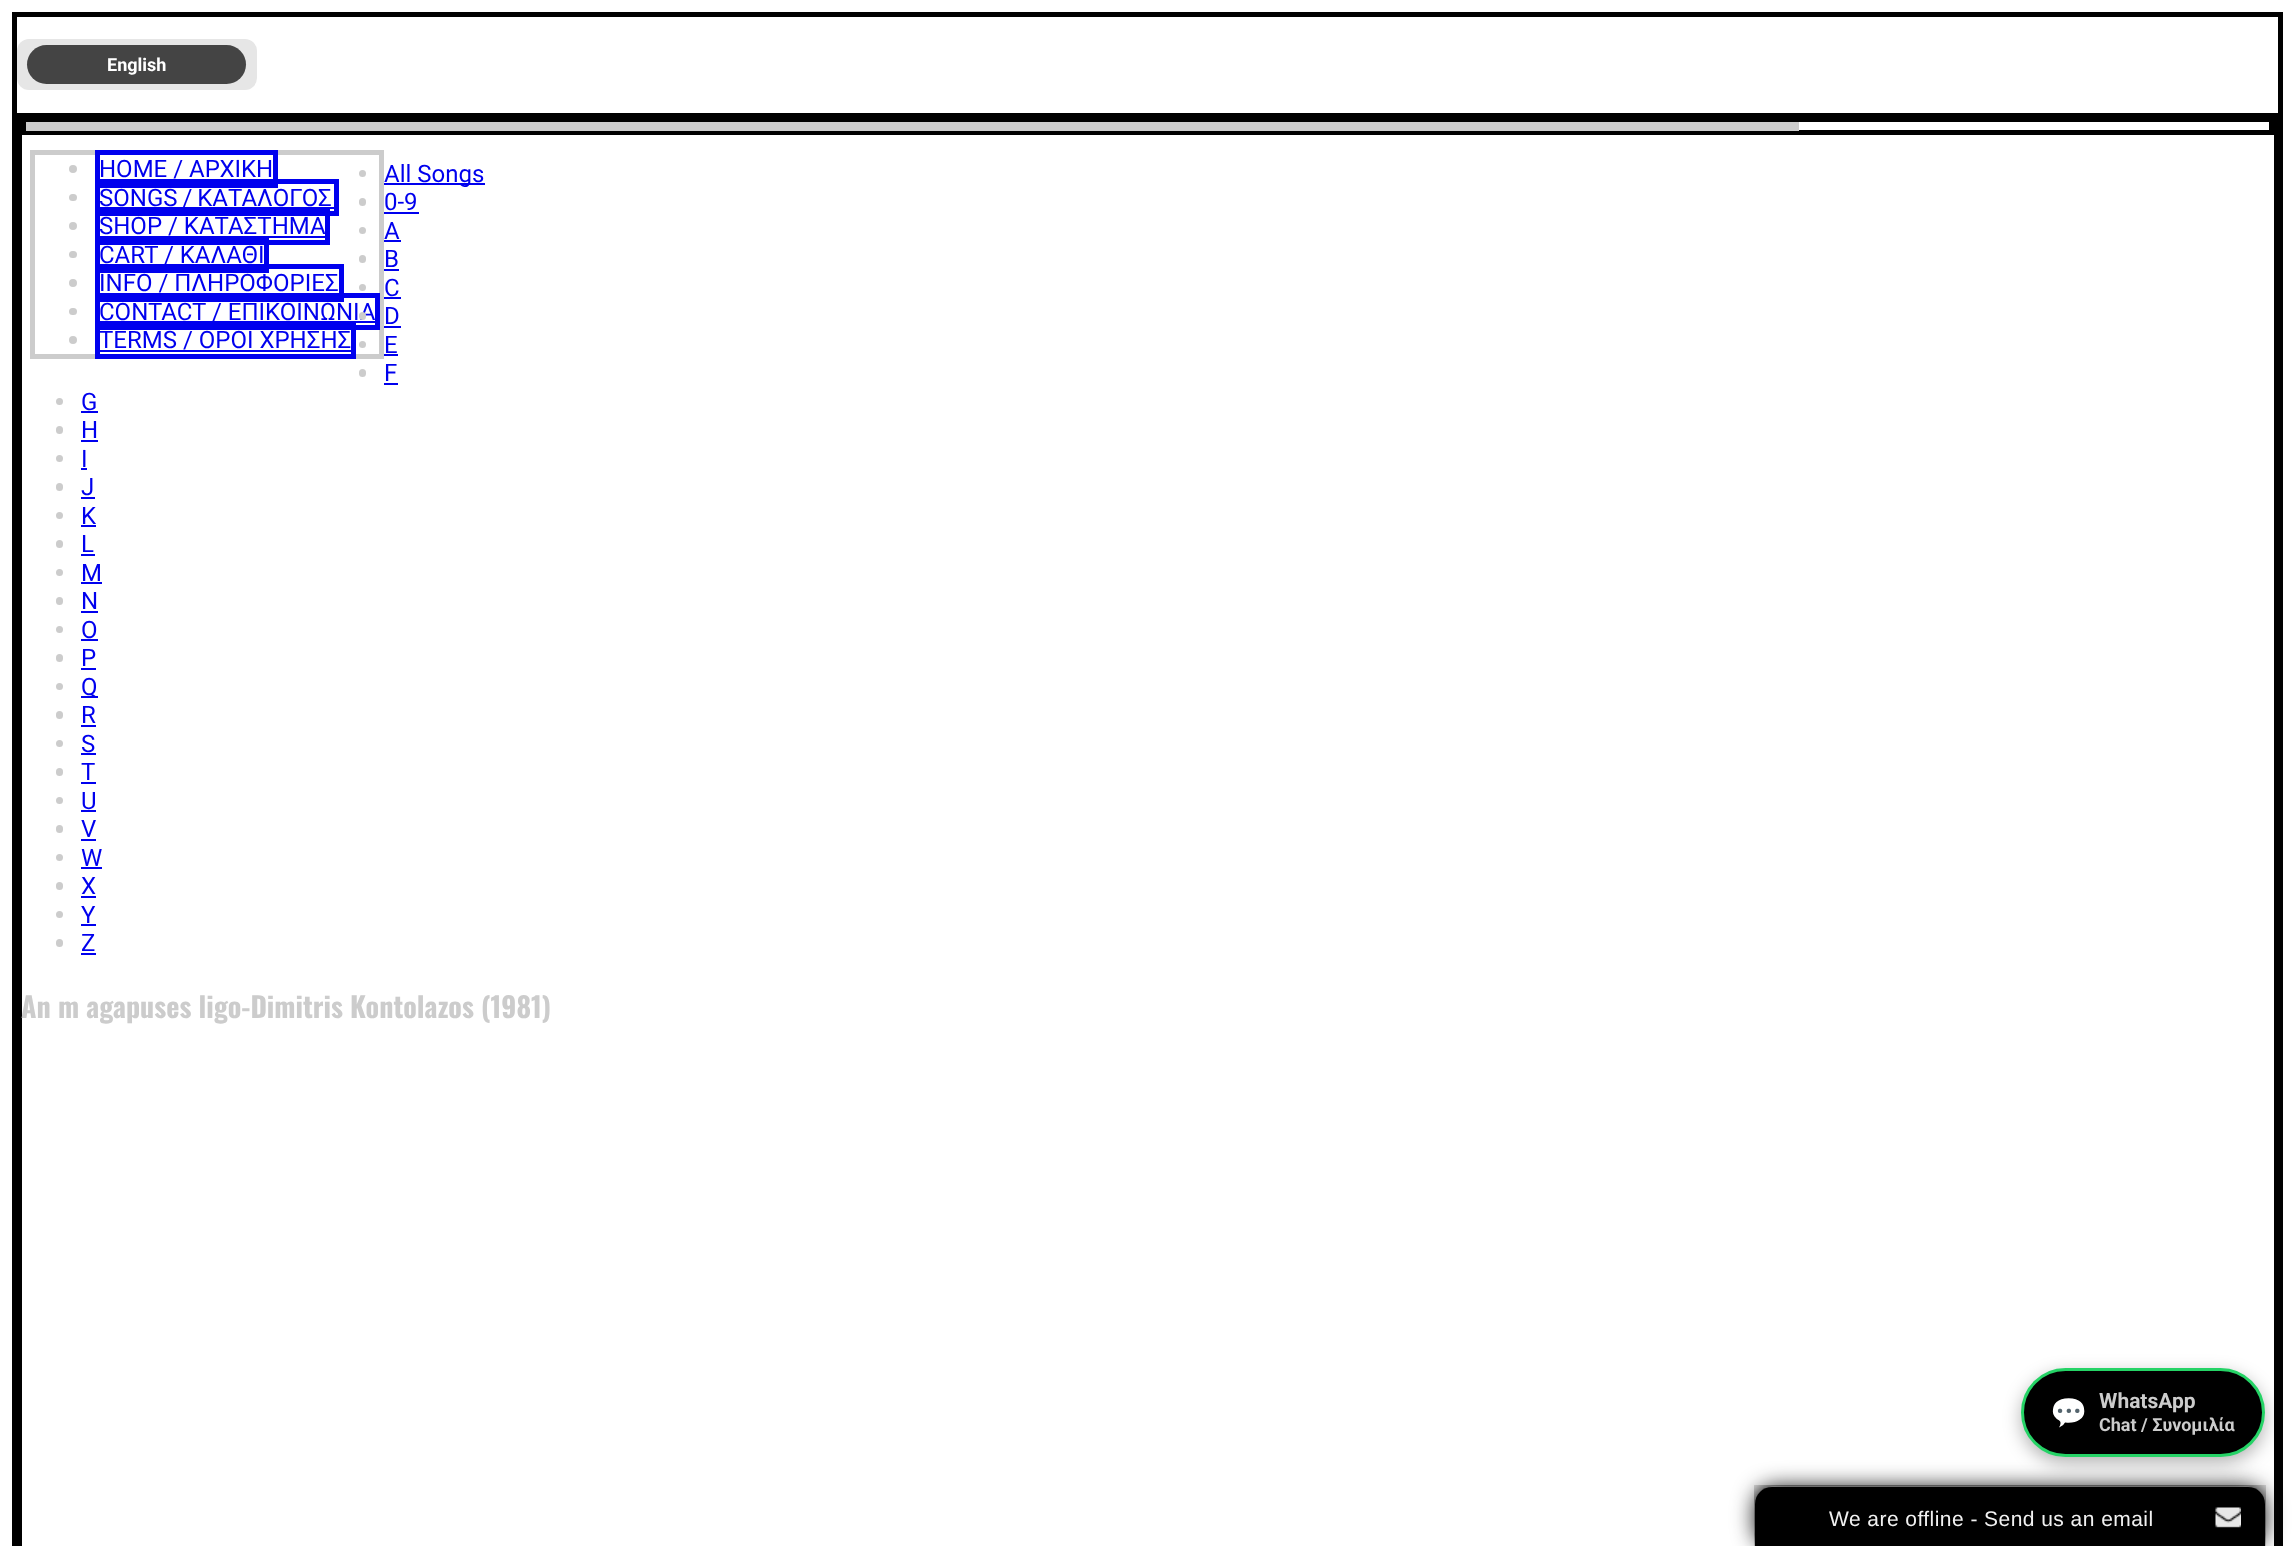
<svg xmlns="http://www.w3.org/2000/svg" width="2295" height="1546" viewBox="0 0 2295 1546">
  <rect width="100%" height="100%" fill="rgb(255,255,255)"/>
  <rect x="14.5" y="14.5" width="2266" height="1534" fill="none" stroke="rgb(0,0,0)" stroke-width="5"/>
  <rect x="17" y="39" width="240" height="51" rx="12" fill="rgb(230,230,230)"/>
  <rect x="27" y="45" width="219" height="39" rx="19.5" fill="rgb(68,68,68)"/>
  <text x="107" y="71" font-family="Roboto" font-size="18" font-weight="bold" fill="rgb(255,255,255)">English</text>
  <rect x="19.5" y="115.5" width="2257" height="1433" fill="none" stroke="rgb(0,0,0)" stroke-width="5"/>
  <rect x="23.5" y="119.5" width="2248" height="13" fill="none" stroke="rgb(0,0,0)" stroke-width="5"/>
  <rect x="26" y="122" width="1773" height="9" fill="rgb(204,204,204)"/>
  <rect x="32.5" y="152.5" width="349" height="204" fill="none" stroke="rgb(204,204,204)" stroke-width="5"/>
  <circle cx="73" cy="169" r="4" fill="rgb(204,204,204)"/>
  <rect x="97.5" y="152.5" width="178" height="33" fill="none" stroke="rgb(0,0,238)" stroke-width="5"/>
  <text x="99" y="177" font-family="Roboto" font-size="24" fill="rgb(0,0,238)">HOME / ΑΡΧΙΚΗ</text>
  <rect x="69" y="194" width="8" height="7" rx="3.5" fill="rgb(204,204,204)"/>
  <rect x="97.5" y="181.5" width="239" height="32" fill="none" stroke="rgb(0,0,238)" stroke-width="5"/>
  <rect x="330" y="207" width="5" height="2" fill="rgb(0,0,238)"/>
  <text x="99" y="206" word-spacing="-1" font-family="Roboto" font-size="24" fill="rgb(0,0,238)">SONGS / ΚΑΤΑΛΟΓΟΣ</text>
  <circle cx="73" cy="226" r="4" fill="rgb(204,204,204)"/>
  <rect x="97.5" y="209.5" width="230" height="33" fill="none" stroke="rgb(0,0,238)" stroke-width="5"/>
  <text x="99" y="234" font-family="Roboto" font-size="24" fill="rgb(0,0,238)">SHOP / ΚΑΤΑΣΤΗΜΑ</text>
  <rect x="269" y="236" width="57" height="2" fill="rgb(0,0,238)"/>
  <rect x="69" y="251" width="8" height="7" rx="3.5" fill="rgb(204,204,204)"/>
  <rect x="97.5" y="238.5" width="169" height="32" fill="none" stroke="rgb(0,0,238)" stroke-width="5"/>
  <text x="99" y="263" font-family="Roboto" font-size="24" fill="rgb(0,0,238)">CART / ΚΑΛΑΘΙ</text>
  <circle cx="73" cy="283" r="4" fill="rgb(204,204,204)"/>
  <rect x="97.5" y="266.5" width="244" height="33" fill="none" stroke="rgb(0,0,238)" stroke-width="5"/>
  <text x="99" y="291" font-family="Roboto" font-size="24" fill="rgb(0,0,238)">INFO / ΠΛΗΡΟΦΟΡΙΕΣ</text>
  <rect x="69" y="308" width="8" height="7" rx="3.5" fill="rgb(204,204,204)"/>
  <rect x="97.5" y="295.5" width="280" height="32" fill="none" stroke="rgb(0,0,238)" stroke-width="5"/>
  <rect x="356" y="321" width="19" height="2" fill="rgb(0,0,238)"/>
  <text x="99" y="320" font-family="Roboto" font-size="24" fill="rgb(0,0,238)">CONTACT / ΕΠΙΚΟΙΝΩΝΙΑ</text>
  <circle cx="73" cy="340" r="4" fill="rgb(204,204,204)"/>
  <rect x="97.5" y="323.5" width="256" height="33" fill="none" stroke="rgb(0,0,238)" stroke-width="5"/>
  <text x="99" y="348" font-family="Roboto" font-size="24" fill="rgb(0,0,238)">TERMS / ΟΡΟΙ ΧΡΗΣΗΣ</text>
  <rect x="99" y="350" width="252" height="2" fill="rgb(0,0,238)"/>
  <circle cx="362.5" cy="173.5" r="3.5" fill="rgb(204,204,204)"/>
  <rect x="384" y="183" width="101" height="2" fill="rgb(0,0,238)"/>
  <text x="384" y="182" font-family="Roboto" font-size="24" fill="rgb(0,0,238)">All Songs</text>
  <rect x="359" y="198" width="7" height="8" rx="3.5" fill="rgb(204,204,204)"/>
  <text x="384" y="210" font-family="Roboto" font-size="24" fill="rgb(0,0,238)">0-9</text>
  <rect x="384" y="212" width="35" height="2" fill="rgb(0,0,238)"/>
  <circle cx="362.5" cy="230.5" r="3.5" fill="rgb(204,204,204)"/>
  <text x="384" y="239" font-family="Roboto" font-size="24" fill="rgb(0,0,238)">A</text>
  <rect x="384" y="240" width="17" height="2" fill="rgb(0,0,238)"/>
  <rect x="359" y="255" width="7" height="8" rx="3.5" fill="rgb(204,204,204)"/>
  <text x="384" y="267" font-family="Roboto" font-size="24" fill="rgb(0,0,238)">B</text>
  <rect x="384" y="269" width="15" height="2" fill="rgb(0,0,238)"/>
  <circle cx="362.5" cy="287.5" r="3.5" fill="rgb(204,204,204)"/>
  <text x="384" y="296" font-family="Roboto" font-size="24" fill="rgb(0,0,238)">C</text>
  <rect x="384" y="297" width="17" height="2" fill="rgb(0,0,238)"/>
  <rect x="359" y="312" width="7" height="8" rx="3.5" fill="rgb(204,204,204)"/>
  <text x="384" y="324" font-family="Roboto" font-size="24" fill="rgb(0,0,238)">D</text>
  <rect x="384" y="326" width="17" height="2" fill="rgb(0,0,238)"/>
  <circle cx="362.5" cy="344.5" r="3.5" fill="rgb(204,204,204)"/>
  <text x="384" y="353" font-family="Roboto" font-size="24" fill="rgb(0,0,238)">E</text>
  <rect x="384" y="354" width="14" height="2" fill="rgb(0,0,238)"/>
  <rect x="359" y="369" width="7" height="8" rx="3.5" fill="rgb(204,204,204)"/>
  <text x="384" y="381" font-family="Roboto" font-size="24" fill="rgb(0,0,238)">F</text>
  <rect x="384" y="383" width="14" height="2" fill="rgb(0,0,238)"/>
  <circle cx="59.5" cy="401.5" r="3.5" fill="rgb(204,204,204)"/>
  <text x="81" y="410" font-family="Roboto" font-size="24" fill="rgb(0,0,238)">G</text>
  <rect x="81" y="411" width="17" height="2" fill="rgb(0,0,238)"/>
  <rect x="56" y="426" width="7" height="8" rx="3.5" fill="rgb(204,204,204)"/>
  <text x="81" y="438" font-family="Roboto" font-size="24" fill="rgb(0,0,238)">H</text>
  <rect x="81" y="440" width="17" height="2" fill="rgb(0,0,238)"/>
  <circle cx="59.5" cy="458.5" r="3.5" fill="rgb(204,204,204)"/>
  <text x="81" y="467" font-family="Roboto" font-size="24" fill="rgb(0,0,238)">I</text>
  <rect x="81" y="468" width="6" height="2" fill="rgb(0,0,238)"/>
  <rect x="56" y="483" width="7" height="8" rx="3.5" fill="rgb(204,204,204)"/>
  <text x="81" y="495" font-family="Roboto" font-size="24" fill="rgb(0,0,238)">J</text>
  <rect x="81" y="497" width="14" height="2" fill="rgb(0,0,238)"/>
  <circle cx="59.5" cy="515.5" r="3.5" fill="rgb(204,204,204)"/>
  <text x="81" y="524" font-family="Roboto" font-size="24" fill="rgb(0,0,238)">K</text>
  <rect x="81" y="525" width="15" height="2" fill="rgb(0,0,238)"/>
  <rect x="56" y="540" width="7" height="8" rx="3.5" fill="rgb(204,204,204)"/>
  <text x="81" y="552" font-family="Roboto" font-size="24" fill="rgb(0,0,238)">L</text>
  <rect x="81" y="554" width="14" height="2" fill="rgb(0,0,238)"/>
  <circle cx="59.5" cy="572.5" r="3.5" fill="rgb(204,204,204)"/>
  <text x="81" y="581" font-family="Roboto" font-size="24" fill="rgb(0,0,238)">M</text>
  <rect x="81" y="582" width="21" height="2" fill="rgb(0,0,238)"/>
  <rect x="56" y="597" width="7" height="8" rx="3.5" fill="rgb(204,204,204)"/>
  <text x="81" y="609" font-family="Roboto" font-size="24" fill="rgb(0,0,238)">N</text>
  <rect x="81" y="611" width="17" height="2" fill="rgb(0,0,238)"/>
  <circle cx="59.5" cy="629.5" r="3.5" fill="rgb(204,204,204)"/>
  <text x="81" y="638" font-family="Roboto" font-size="24" fill="rgb(0,0,238)">O</text>
  <rect x="81" y="639" width="17" height="2" fill="rgb(0,0,238)"/>
  <rect x="56" y="654" width="7" height="8" rx="3.5" fill="rgb(204,204,204)"/>
  <text x="81" y="666" font-family="Roboto" font-size="24" fill="rgb(0,0,238)">P</text>
  <rect x="81" y="668" width="15" height="2" fill="rgb(0,0,238)"/>
  <circle cx="59.5" cy="686.5" r="3.5" fill="rgb(204,204,204)"/>
  <rect x="81" y="696" width="17" height="2" fill="rgb(0,0,238)"/>
  <text x="81" y="695" font-family="Roboto" font-size="24" fill="rgb(0,0,238)">Q</text>
  <rect x="56" y="711" width="7" height="8" rx="3.5" fill="rgb(204,204,204)"/>
  <text x="81" y="723" font-family="Roboto" font-size="24" fill="rgb(0,0,238)">R</text>
  <rect x="81" y="725" width="15" height="2" fill="rgb(0,0,238)"/>
  <circle cx="59.5" cy="743.5" r="3.5" fill="rgb(204,204,204)"/>
  <text x="81" y="752" font-family="Roboto" font-size="24" fill="rgb(0,0,238)">S</text>
  <rect x="81" y="753" width="15" height="2" fill="rgb(0,0,238)"/>
  <rect x="56" y="768" width="7" height="8" rx="3.5" fill="rgb(204,204,204)"/>
  <text x="81" y="780" font-family="Roboto" font-size="24" fill="rgb(0,0,238)">T</text>
  <rect x="81" y="782" width="15" height="2" fill="rgb(0,0,238)"/>
  <circle cx="59.5" cy="800.5" r="3.5" fill="rgb(204,204,204)"/>
  <text x="81" y="809" font-family="Roboto" font-size="24" fill="rgb(0,0,238)">U</text>
  <rect x="81" y="810" width="15" height="2" fill="rgb(0,0,238)"/>
  <rect x="56" y="825" width="7" height="8" rx="3.5" fill="rgb(204,204,204)"/>
  <text x="81" y="837" font-family="Roboto" font-size="24" fill="rgb(0,0,238)">V</text>
  <rect x="81" y="839" width="15" height="2" fill="rgb(0,0,238)"/>
  <circle cx="59.5" cy="857.5" r="3.5" fill="rgb(204,204,204)"/>
  <text x="81" y="866" font-family="Roboto" font-size="24" fill="rgb(0,0,238)">W</text>
  <rect x="81" y="867" width="21" height="2" fill="rgb(0,0,238)"/>
  <rect x="56" y="882" width="7" height="8" rx="3.5" fill="rgb(204,204,204)"/>
  <text x="81" y="894" font-family="Roboto" font-size="24" fill="rgb(0,0,238)">X</text>
  <rect x="81" y="896" width="15" height="2" fill="rgb(0,0,238)"/>
  <circle cx="59.5" cy="914.5" r="3.5" fill="rgb(204,204,204)"/>
  <text x="81" y="923" font-family="Roboto" font-size="24" fill="rgb(0,0,238)">Y</text>
  <rect x="81" y="924" width="15" height="2" fill="rgb(0,0,238)"/>
  <rect x="56" y="939" width="7" height="8" rx="3.5" fill="rgb(204,204,204)"/>
  <text x="81" y="951" font-family="Roboto" font-size="24" fill="rgb(0,0,238)">Z</text>
  <rect x="81" y="953" width="15" height="2" fill="rgb(0,0,238)"/>
  <text x="21" y="1018" font-family="Oswald" font-size="28.1" font-weight="bold" fill="rgb(204,204,204)">An m agapuses ligo-Dimitris Kontolazos (1981)</text>
  <rect x="2021" y="1374" width="244" height="89" rx="44.5" fill="rgba(0,0,0,0.3)" filter="blur(9px)"/>
  <rect x="2022.5" y="1369.5" width="241" height="86" rx="43" fill="rgb(0,0,0)" stroke="rgb(37,211,102)" stroke-width="3"/>
  <text x="2050" y="1423" font-family="Noto Color Emoji" font-size="30" font-weight="bold" fill="rgb(255,255,255)">💬</text>
  <text x="2099" y="1408" font-family="Roboto" font-size="21" font-weight="bold" fill="rgb(204,204,204)">WhatsApp</text>
  <text x="2099" y="1431" font-family="Roboto" font-size="18" font-weight="bold" fill="rgb(204,204,204)">Chat / Συνομιλία</text>
  <rect x="1755" y="1487" width="510" height="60" rx="20" fill="rgb(17,17,17)" filter="blur(11px)"/>
  <image x="1754" y="1485" width="512" height="61" href="pic1.png"/>
  <path d="M1772 1487H2248C2257.5 1487 2265 1494.5 2265 1504V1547H1755V1504C1755 1494.5 1762.5 1487 1772 1487Z" fill="rgb(0,0,0)"/>
  <text x="1829" y="1526" font-family="Liberation Sans" font-size="21" letter-spacing="0.45" fill="rgb(241,241,241)">We are offline - Send us an email</text>
  <image x="2215" y="1507" width="26" height="21" href="pic2.png"/>
</svg>
